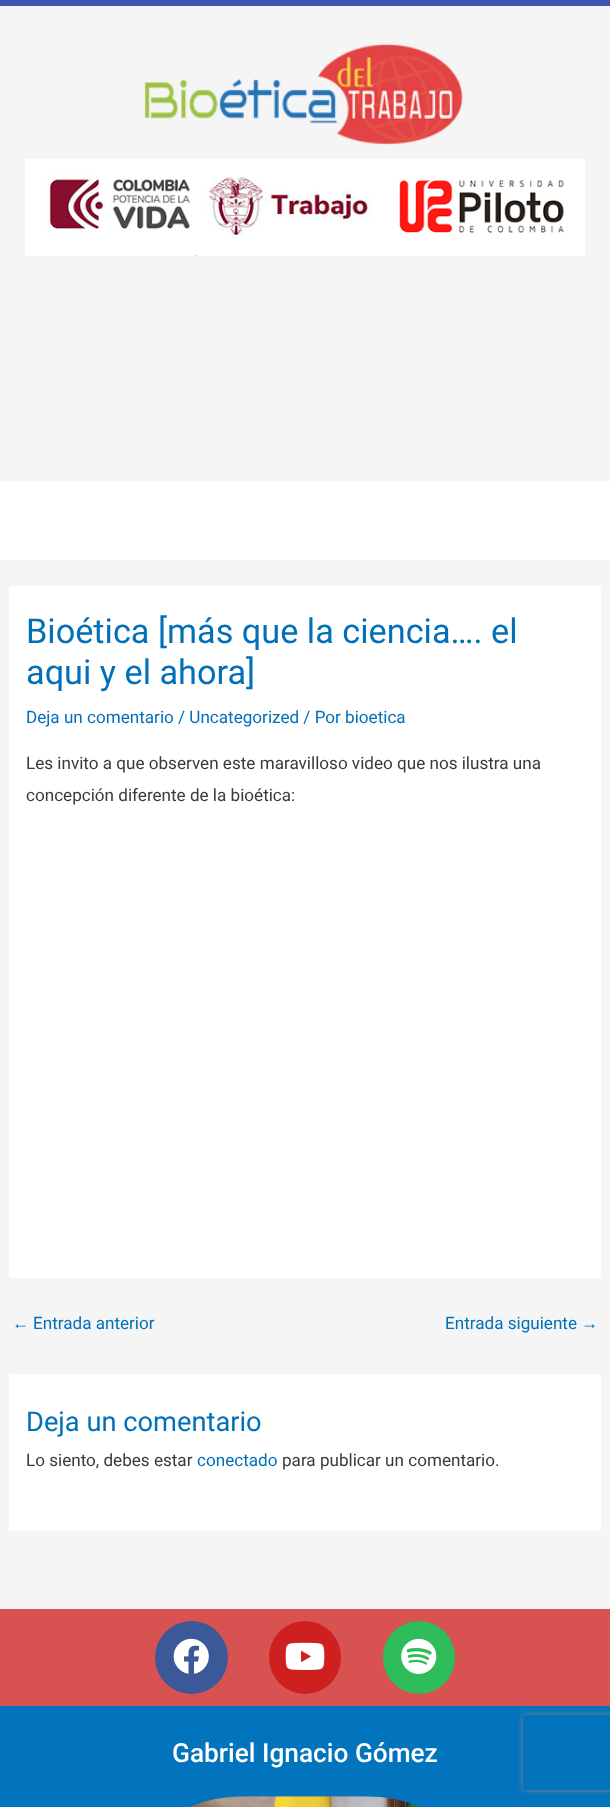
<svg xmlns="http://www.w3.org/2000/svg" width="610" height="1807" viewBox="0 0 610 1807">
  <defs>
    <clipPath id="clip1"><path d="M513 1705H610V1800H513ZM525.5 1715H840.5C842 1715 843 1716 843 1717.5V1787.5C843 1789 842 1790 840.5 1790H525.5C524 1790 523 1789 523 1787.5V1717.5C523 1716 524 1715 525.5 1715Z" clip-rule="evenodd"/></clipPath>
  </defs>
  <rect width="100%" height="100%" fill="rgb(245,245,245)"/>
  <rect x="0" y="0" width="610" height="6" fill="rgb(64,84,178)"/>
  <image x="144" y="43" width="319" height="102" href="pic1.png"/>
  <image x="25" y="159" width="560" height="98" href="pic2.png"/>
  <rect x="0" y="481" width="610" height="79" fill="rgb(255,255,255)"/>
  <rect x="9" y="586" width="592" height="692" fill="rgb(255,255,255)"/>
  <g font-family="Roboto" font-size="34.25" fill="rgb(1,112,185)">
    <text>
      <tspan x="26" y="643">Bioética [más que la ciencia…. el</tspan>
      <tspan x="26" y="684">aqui y el ahora]</tspan>
    </text>
  </g>
  <text x="26" y="723" font-family="Roboto" font-size="17.1" fill="rgb(1,112,185)">Deja un comentario / Uncategorized / Por bioetica</text>
  <g font-family="Roboto" font-size="17.1" fill="rgb(58,58,58)">
    <text>
      <tspan x="26" y="769">Les invito a que observen este maravilloso video que nos ilustra una</tspan>
      <tspan x="26" y="801">concepción diferente de la bioética:</tspan>
    </text>
  </g>
  <text x="12" y="1329" font-family="Liberation Sans" font-size="17.1" fill="rgb(1,112,185)">←</text>
  <g font-family="Roboto" font-size="17.1" fill="rgb(1,112,185)">
    <text x="33" y="1329">Entrada anterior</text>
    <text x="445" y="1329">Entrada siguiente</text>
  </g>
  <text x="581" y="1329" font-family="Liberation Sans" font-size="17.1" fill="rgb(1,112,185)">→</text>
  <rect x="9" y="1374" width="592" height="157" fill="rgb(255,255,255)"/>
  <text x="26" y="1431" font-family="Roboto" font-size="27.25" fill="rgb(1,112,185)">Deja un comentario</text>
  <text x="26" y="1466" font-family="Roboto" font-size="17.1" fill="rgb(58,58,58)">Lo siento, debes estar</text>
  <text x="197" y="1466" font-family="Roboto" font-size="17.1" fill="rgb(1,112,185)">conectado</text>
  <text x="282" y="1466" font-family="Roboto" font-size="17.1" fill="rgb(58,58,58)">para publicar un comentario.</text>
  <rect x="0" y="1609" width="610" height="97" fill="rgb(216,82,82)"/>
  <circle cx="191.5" cy="1657.5" r="36.5" fill="rgb(59,89,152)"/>
  <image x="173" y="1638" width="36" height="36" href="pic3.png"/>
  <rect x="269" y="1621" width="72" height="73" rx="36" fill="rgb(205,32,31)"/>
  <image x="285" y="1642" width="40" height="28" href="pic4.png"/>
  <rect x="383" y="1621" width="72" height="73" rx="36" fill="rgb(46,189,89)"/>
  <image x="401" y="1638" width="36" height="36" href="pic5.png"/>
  <rect x="0" y="1706" width="610" height="101" fill="rgb(2,116,190)"/>
  <text x="172" y="1762" font-family="Roboto" font-size="26.25" font-weight="500" fill="rgb(255,255,255)">Gabriel Ignacio Gómez</text>
  <image x="189" y="1796" width="232" height="11" href="pic6.png"/>
  <g clip-path="url(#clip1)">
    <rect x="523" y="1715" width="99" height="75" rx="2.5" fill="rgb(128,128,128)" filter="blur(3px)"/>
  </g>
</svg>
